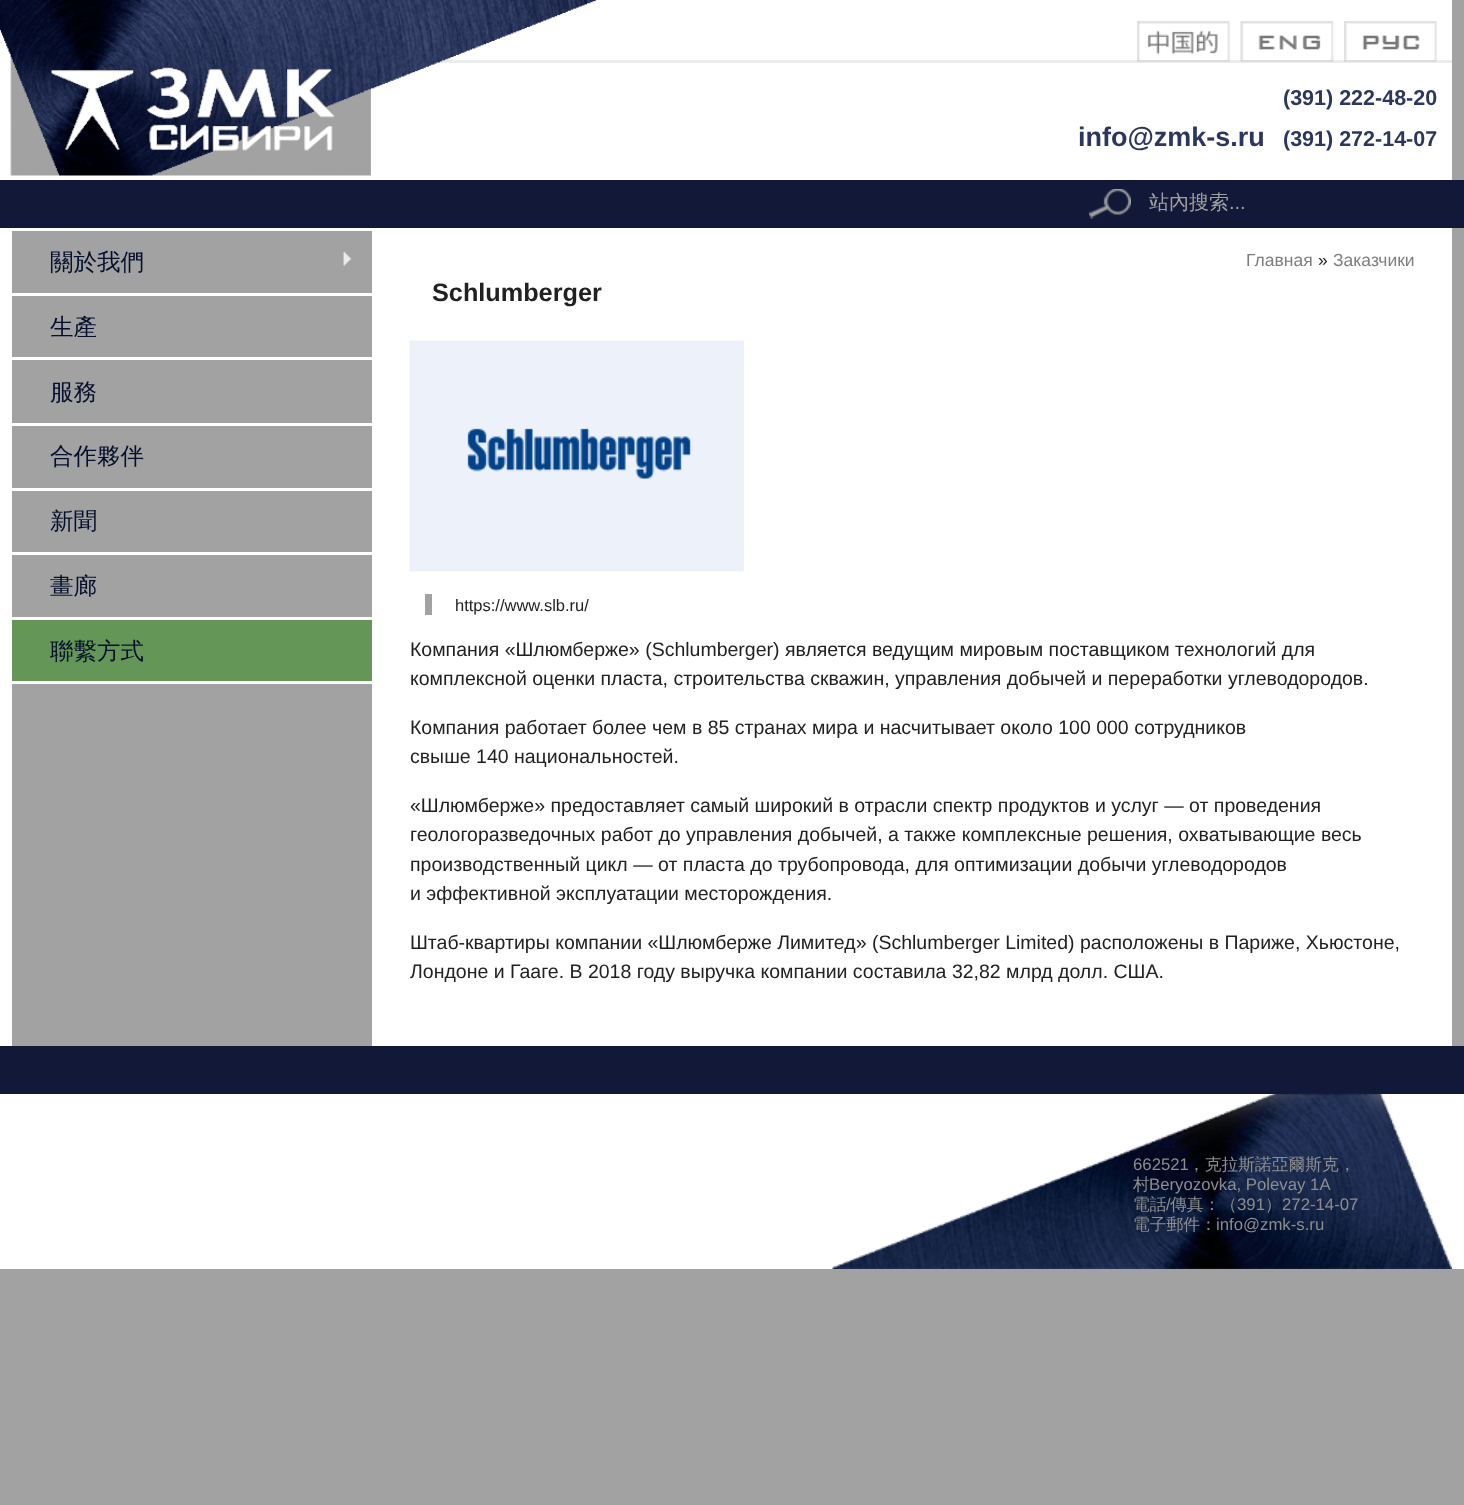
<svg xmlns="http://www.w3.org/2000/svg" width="1464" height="1505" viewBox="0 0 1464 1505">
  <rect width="100%" height="100%" fill="rgb(162,162,162)"/>
  <rect x="0" y="30" width="12" height="1016" fill="rgb(255,255,255)"/>
  <rect x="12" y="0" width="1440" height="180" fill="rgb(255,255,255)"/>
  <rect x="436" y="60" width="1016" height="3" fill="rgb(236,236,236)"/>
  <image x="0" y="0" width="596" height="176" href="pic1.png"/>
  <image x="1137" y="21" width="93" height="41" href="pic2.png"/>
  <image x="1240" y="21" width="94" height="41" href="pic3.png"/>
  <image x="1344" y="21" width="93" height="41" href="pic4.png"/>
  <text x="1283" y="105" font-family="Liberation Sans" font-size="21.5" font-weight="bold" fill="rgb(45,55,94)">(391) 222-48-20</text>
  <text x="1078" y="146" font-family="Liberation Sans" font-size="27" font-weight="bold" fill="rgb(45,55,94)">info@zmk-s.ru</text>
  <text x="1283" y="146" font-family="Liberation Sans" font-size="21.5" font-weight="bold" fill="rgb(45,55,94)">(391) 272-14-07</text>
  <rect x="0" y="180" width="1464" height="48" fill="rgb(18,25,56)"/>
  <image x="1089" y="189" width="42" height="30" href="pic5.png"/>
  <text x="1149" y="209" font-family="WenQuanYi Zen Hei" font-size="20" font-weight="500" fill="rgb(161,161,161)">站內搜索</text>
  <text x="1229" y="209" font-family="Liberation Sans" font-size="20" fill="rgb(161,161,161)">...</text>
  <rect x="372" y="228" width="1080" height="818" fill="rgb(255,255,255)"/>
  <rect x="12" y="228" width="363" height="3" fill="rgb(255,255,255)"/>
  <text x="50" y="270" font-family="WenQuanYi Zen Hei" font-size="23.5" font-weight="500" fill="rgb(5,15,45)">關於我們</text>
  <image x="343" y="251" width="9" height="15" href="pic6.png"/>
  <rect x="12" y="293" width="363" height="3" fill="rgb(255,255,255)"/>
  <text x="50" y="335" font-family="WenQuanYi Zen Hei" font-size="23.5" font-weight="500" fill="rgb(5,15,45)">生產</text>
  <rect x="12" y="357" width="363" height="3" fill="rgb(255,255,255)"/>
  <text x="50" y="400" font-family="WenQuanYi Zen Hei" font-size="23.5" font-weight="500" fill="rgb(5,15,45)">服務</text>
  <rect x="12" y="423" width="363" height="3" fill="rgb(255,255,255)"/>
  <text x="50" y="464" font-family="WenQuanYi Zen Hei" font-size="23.5" font-weight="500" fill="rgb(5,15,45)">合作夥伴</text>
  <rect x="12" y="488" width="363" height="3" fill="rgb(255,255,255)"/>
  <text x="50" y="529" font-family="WenQuanYi Zen Hei" font-size="23.5" font-weight="500" fill="rgb(5,15,45)">新聞</text>
  <rect x="12" y="552" width="363" height="3" fill="rgb(255,255,255)"/>
  <text x="50" y="594" font-family="WenQuanYi Zen Hei" font-size="23.5" font-weight="500" fill="rgb(5,15,45)">畫廊</text>
  <rect x="12" y="620" width="360" height="61" fill="rgb(99,150,87)"/>
  <rect x="12" y="617" width="363" height="3" fill="rgb(255,255,255)"/>
  <rect x="12" y="681" width="363" height="3" fill="rgb(255,255,255)"/>
  <text x="50" y="659" font-family="WenQuanYi Zen Hei" font-size="23.5" font-weight="500" fill="rgb(5,15,45)">聯繫方式</text>
  <text x="1246" y="266" font-family="Liberation Sans" font-size="17.5" fill="rgb(127,126,124)">Главная</text>
  <text x="1318" y="266" font-family="Liberation Sans" font-size="17.5" fill="rgb(33,33,33)">»</text>
  <text x="1333" y="266" font-family="Liberation Sans" font-size="17.5" fill="rgb(127,126,124)">Заказчики</text>
  <text x="432" y="301" font-family="Liberation Sans" font-size="25.25" font-weight="bold" fill="rgb(33,33,33)">Schlumberger</text>
  <image x="409" y="340" width="335" height="232" href="pic7.png"/>
  <rect x="425" y="594" width="7" height="21" fill="rgb(162,162,162)"/>
  <text x="455" y="611" font-family="Liberation Sans" font-size="16.5" fill="rgb(33,33,33)">https://www.slb.ru/</text>
  <g font-family="Liberation Sans" font-size="19.5" fill="rgb(33,33,33)">
    <text>
      <tspan x="410" y="656">Компания «Шлюмберже» (Schlumberger) является ведущим мировым поставщиком технологий для</tspan>
      <tspan x="410" y="685">комплексной оценки пласта, строительства скважин, управления добычей и переработки углеводородов.</tspan>
    </text>
    <text>
      <tspan x="410" y="734">Компания работает более чем в 85 странах мира и насчитывает около 100 000 сотрудников</tspan>
      <tspan x="410" y="763">свыше 140 национальностей.</tspan>
    </text>
    <text>
      <tspan x="410" y="812">«Шлюмберже» предоставляет самый широкий в отрасли спектр продуктов и услуг — от проведения</tspan>
      <tspan x="410" y="841">геологоразведочных работ до управления добычей, а также комплексные решения, охватывающие весь</tspan>
      <tspan x="410" y="871">производственный цикл — от пласта до трубопровода, для оптимизации добычи углеводородов</tspan>
      <tspan x="410" y="900">и эффективной эксплуатации месторождения.</tspan>
    </text>
    <text>
      <tspan x="410" y="949">Штаб-квартиры компании «Шлюмберже Лимитед» (Schlumberger Limited) расположены в Париже, Хьюстоне,</tspan>
      <tspan x="410" y="978">Лондоне и Гааге. В 2018 году выручка компании составила 32,82 млрд долл. США.</tspan>
    </text>
  </g>
  <rect x="0" y="1094" width="1464" height="175" fill="rgb(255,255,255)"/>
  <rect x="0" y="1046" width="1464" height="48" fill="rgb(18,25,56)"/>
  <image x="832" y="1093" width="620" height="176" href="pic8.png"/>
  <text x="1133" y="1170" font-family="Liberation Sans" font-size="16.75" fill="rgb(141,141,141)">662521</text>
  <g font-family="WenQuanYi Zen Hei" font-size="16.75" font-weight="500" fill="rgb(141,141,141)">
    <text x="1188" y="1170">，克拉斯諾亞爾斯克，</text>
    <text x="1133" y="1190">村</text>
  </g>
  <text x="1149" y="1190" font-family="Liberation Sans" font-size="16.75" fill="rgb(141,141,141)">Beryozovka, Polevay 1A</text>
  <text x="1133" y="1210" font-family="WenQuanYi Zen Hei" font-size="16.75" font-weight="500" fill="rgb(141,141,141)">電話</text>
  <text x="1166" y="1210" font-family="Liberation Sans" font-size="16.75" fill="rgb(141,141,141)">/</text>
  <text x="1170" y="1210" font-family="WenQuanYi Zen Hei" font-size="16.75" font-weight="500" fill="rgb(141,141,141)">傳真：（</text>
  <text x="1237" y="1210" font-family="Liberation Sans" font-size="16.75" fill="rgb(141,141,141)">391</text>
  <text x="1265" y="1210" font-family="WenQuanYi Zen Hei" font-size="16.75" font-weight="500" fill="rgb(141,141,141)">）</text>
  <text x="1282" y="1210" font-family="Liberation Sans" font-size="16.75" fill="rgb(141,141,141)">272-14-07</text>
  <text x="1133" y="1230" font-family="WenQuanYi Zen Hei" font-size="16.75" font-weight="500" fill="rgb(141,141,141)">電子郵件：</text>
  <text x="1216" y="1230" font-family="Liberation Sans" font-size="16.75" fill="rgb(141,141,141)">info@zmk-s.ru</text>
</svg>
